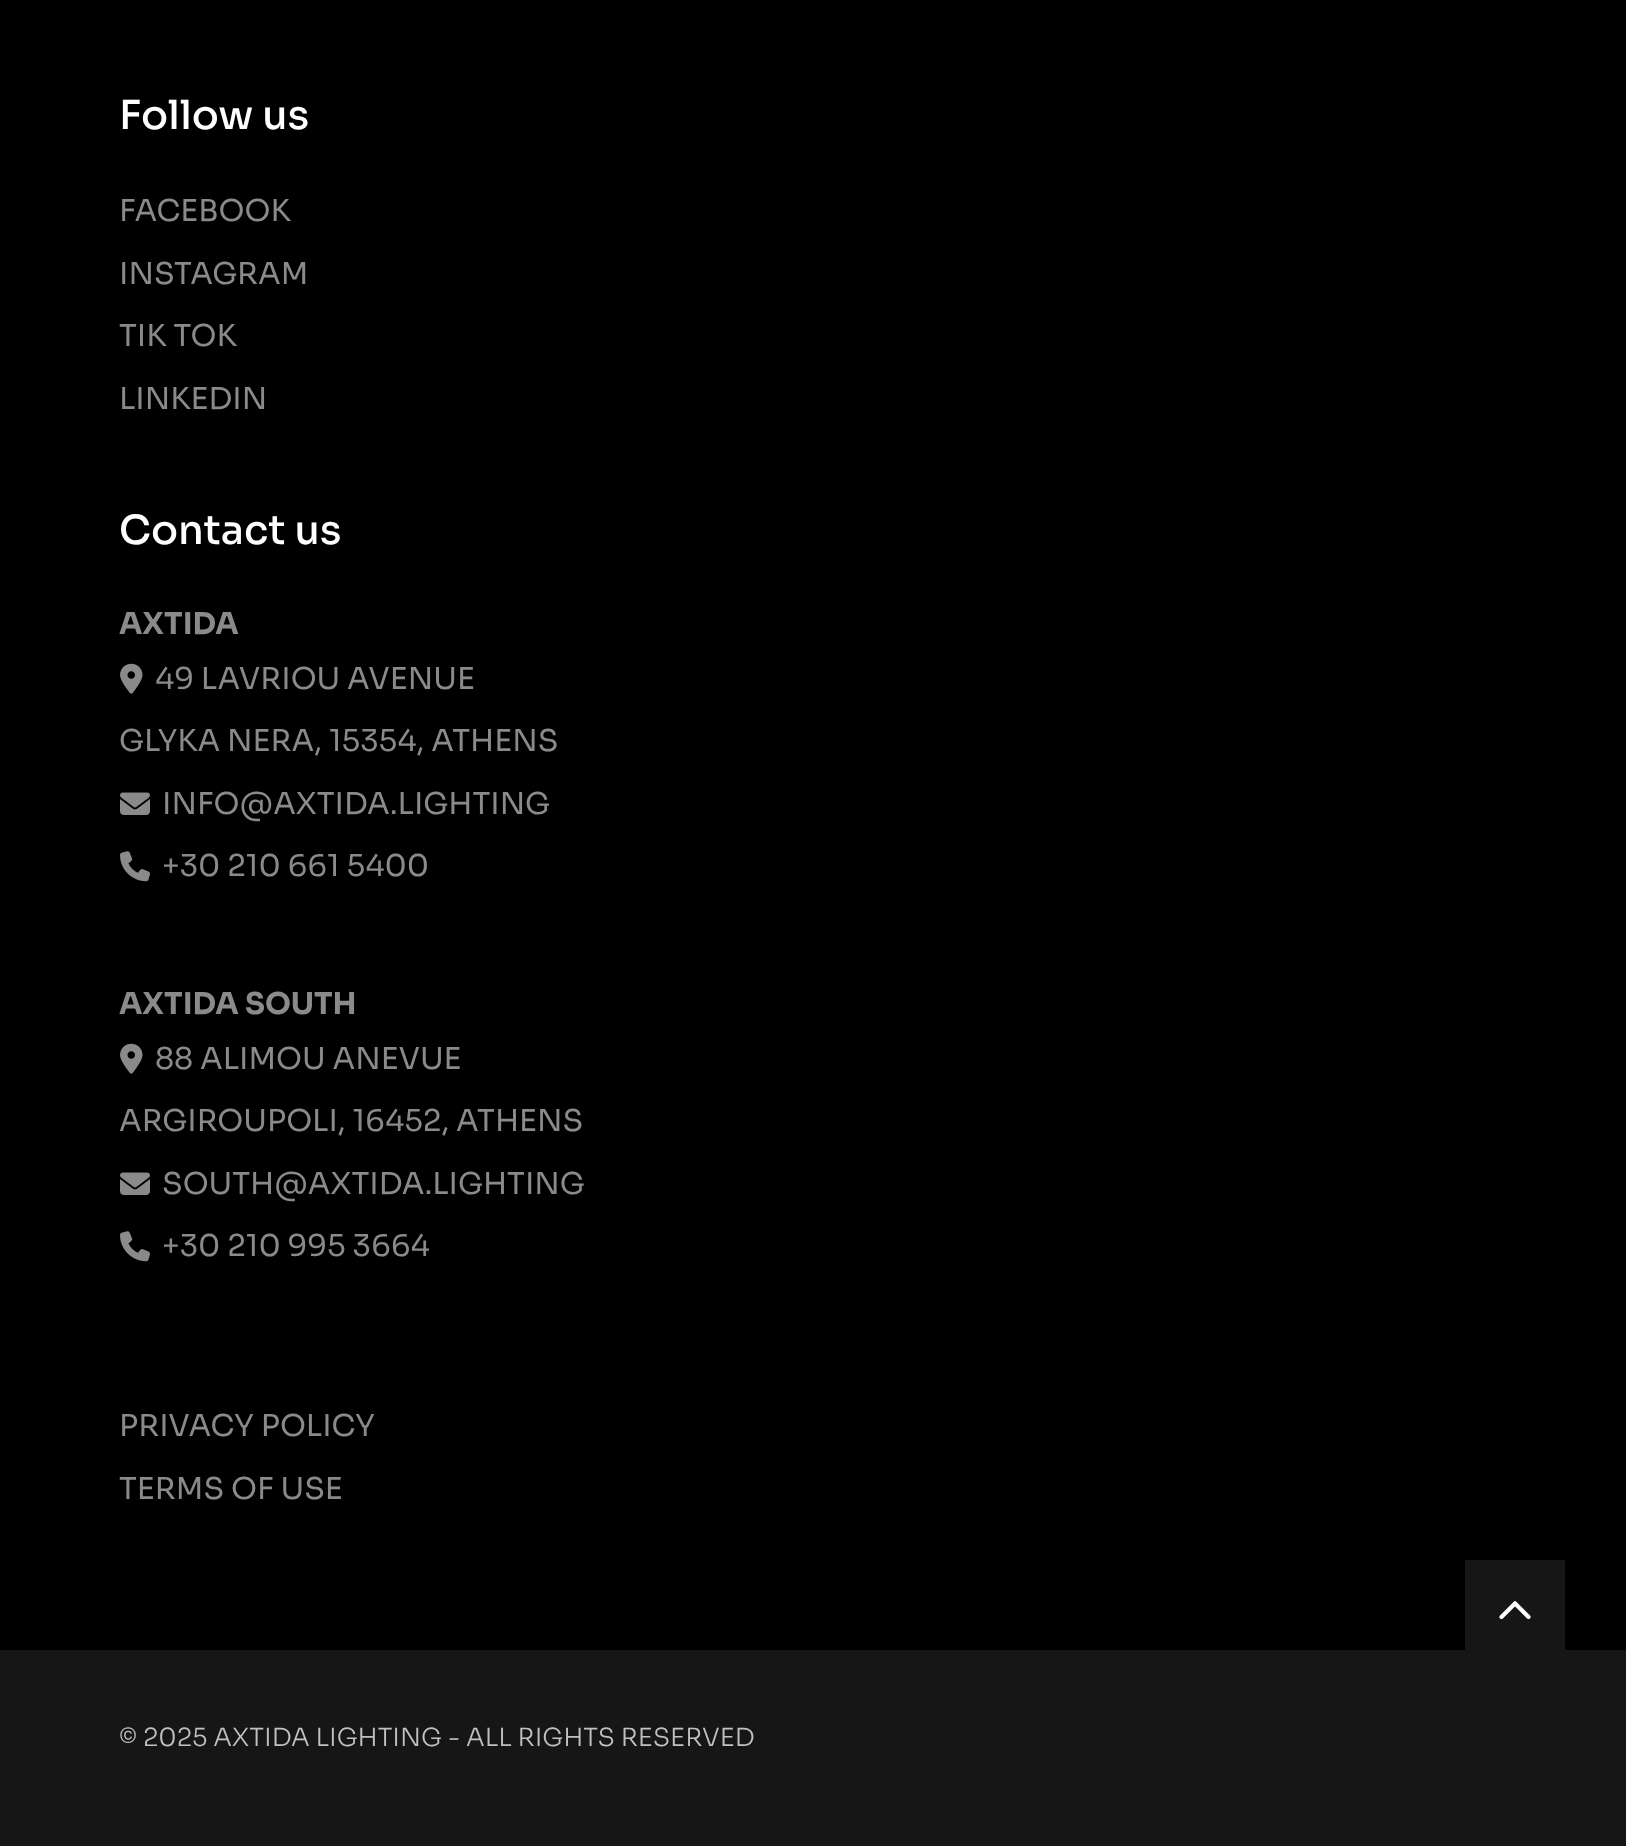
<svg xmlns="http://www.w3.org/2000/svg" width="1626" height="1846" viewBox="0 0 1626 1846">
  <rect width="100%" height="100%" fill="rgb(0,0,0)"/>
  <text x="119" y="129" font-family="Sora" font-size="40" font-weight="500" fill="rgb(255,255,255)">Follow us</text>
  <g font-family="Sora" font-size="30" fill="rgb(138,138,138)">
    <text x="119" y="221">FACEBOOK</text>
    <text x="119" y="284">INSTAGRAM</text>
    <text x="119" y="346">TIK TOK</text>
    <text x="119" y="409">LINKEDIN</text>
  </g>
  <text x="119" y="544" font-family="Sora" font-size="40" font-weight="500" fill="rgb(255,255,255)">Contact us</text>
  <text x="119" y="634" font-family="Sora" font-size="30" font-weight="bold" fill="rgb(138,138,138)">AXTIDA</text>
  <image x="120" y="663" width="23" height="31" href="pic1.png"/>
  <g font-family="Sora" font-size="30" fill="rgb(138,138,138)">
    <text x="155" y="689">49 LAVRIOU AVENUE</text>
    <text x="119" y="751">GLYKA NERA, 15354, ATHENS</text>
  </g>
  <image x="120" y="792" width="30" height="23" href="pic2.png"/>
  <text x="162" y="814" font-family="Sora" font-size="30" fill="rgb(138,138,138)">INFO@AXTIDA.LIGHTING</text>
  <image x="120" y="851" width="30" height="31" href="pic3.png"/>
  <text x="162" y="876" font-family="Sora" font-size="30" fill="rgb(138,138,138)">+30 210 661 5400</text>
  <text x="119" y="1014" font-family="Sora" font-size="30" font-weight="bold" fill="rgb(138,138,138)">AXTIDA SOUTH</text>
  <image x="120" y="1043" width="23" height="31" href="pic1.png"/>
  <g font-family="Sora" font-size="30" fill="rgb(138,138,138)">
    <text x="155" y="1069">88 ALIMOU ANEVUE</text>
    <text x="119" y="1131">ARGIROUPOLI, 16452, ATHENS</text>
  </g>
  <image x="120" y="1172" width="30" height="23" href="pic2.png"/>
  <text x="162" y="1194" font-family="Sora" font-size="30" fill="rgb(138,138,138)">SOUTH@AXTIDA.LIGHTING</text>
  <image x="120" y="1231" width="30" height="31" href="pic3.png"/>
  <g font-family="Sora" font-size="30" fill="rgb(138,138,138)">
    <text x="162" y="1256">+30 210 995 3664</text>
    <text x="119" y="1436">PRIVACY POLICY</text>
    <text x="119" y="1499">TERMS OF USE</text>
  </g>
  <rect x="0" y="1650" width="1626" height="196" fill="rgb(22,22,22)"/>
  <text x="119" y="1746" font-family="Sora" font-size="25" font-weight="300" fill="rgb(193,193,193)">© 2025 AXTIDA LIGHTING - ALL RIGHTS RESERVED</text>
  <rect x="1465" y="1560" width="100" height="90" fill="rgb(22,22,22)"/>
  <image x="1499" y="1601" width="32" height="19" href="pic4.png"/>
</svg>
